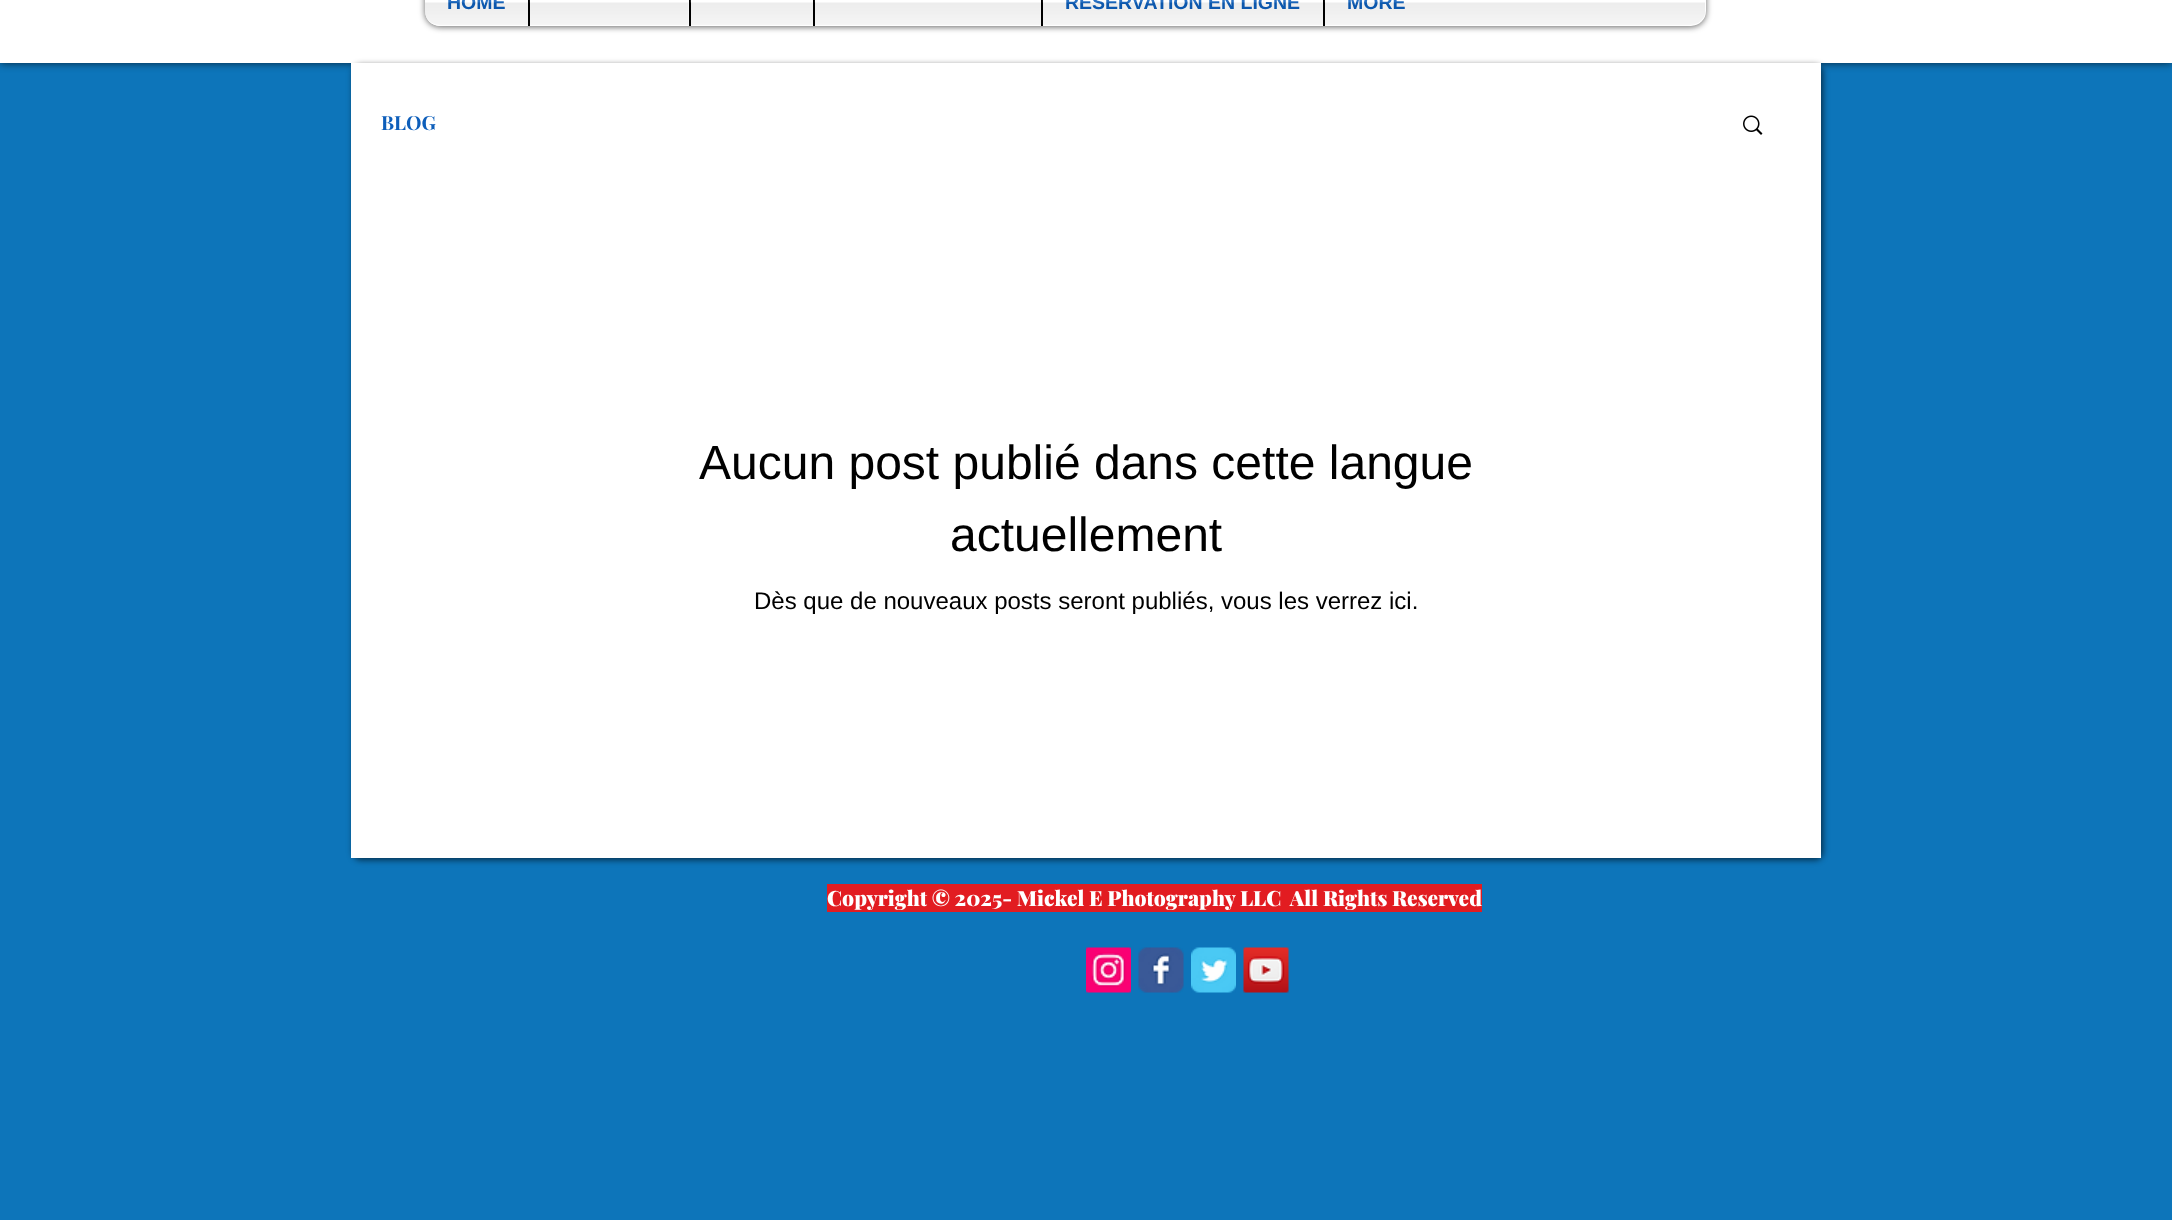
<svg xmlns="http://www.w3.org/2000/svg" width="2172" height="1220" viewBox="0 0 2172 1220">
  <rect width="100%" height="100%" fill="rgb(13,117,186)"/>
  <rect x="0" y="-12" width="2172" height="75" fill="rgba(0,0,0,0.7)" filter="blur(4px)"/>
  <rect x="0" y="0" width="2172" height="63" fill="rgb(255,255,255)"/>
  <rect x="425" y="-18" width="1281" height="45" rx="15" fill="rgba(0,0,0,0.6)" filter="blur(3px)"/>
  <rect x="425" y="-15" width="1281" height="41" rx="15" fill="rgb(255,255,255)"/>
  <image x="425" y="2" width="1280" height="23" href="pic1.png"/>
  <path d="M440-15H528V26H440C431.5 26 425 19.5 425 11V0C425-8.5 431.5-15 440-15Z" fill="rgb(255,255,255)"/>
  <text x="447" y="9" font-family="Liberation Sans" font-size="19.5" font-weight="bold" fill="rgb(13,94,186)">HOME</text>
  <image x="425" y="0" width="103" height="25" href="pic2.png"/>
  <rect x="530" y="2" width="159" height="23" fill="rgb(255,255,255)"/>
  <rect x="528" y="0" width="2" height="26" fill="rgb(0,0,0)"/>
  <image x="529" y="0" width="160" height="25" href="pic3.png"/>
  <rect x="691" y="2" width="122" height="23" fill="rgb(255,255,255)"/>
  <rect x="689" y="0" width="2" height="26" fill="rgb(0,0,0)"/>
  <image x="690" y="0" width="123" height="25" href="pic4.png"/>
  <rect x="815" y="2" width="226" height="23" fill="rgb(255,255,255)"/>
  <rect x="813" y="0" width="2" height="26" fill="rgb(0,0,0)"/>
  <image x="814" y="0" width="227" height="25" href="pic5.png"/>
  <rect x="1043" y="2" width="280" height="23" fill="rgb(255,255,255)"/>
  <rect x="1041" y="0" width="2" height="26" fill="rgb(0,0,0)"/>
  <text x="1065" y="9" font-family="Liberation Sans" font-size="19.5" font-weight="bold" fill="rgb(13,94,186)">RESERVATION EN LIGNE</text>
  <image x="1042" y="0" width="281" height="25" href="pic6.png"/>
  <rect x="1325" y="2" width="103" height="23" fill="rgb(255,255,255)"/>
  <rect x="1323" y="0" width="2" height="26" fill="rgb(0,0,0)"/>
  <text x="1347" y="9" font-family="Liberation Sans" font-size="19.5" font-weight="bold" fill="rgb(13,94,186)">MORE</text>
  <image x="1324" y="0" width="104" height="25" href="pic7.png"/>
  <rect x="353" y="65" width="1470" height="795" rx="8" fill="rgba(0,0,0,0.6)" filter="blur(3px)"/>
  <rect x="351" y="63" width="1470" height="795" fill="rgb(255,255,255)"/>
  <text x="381" y="130" font-family="Playfair Display" font-size="19.5" font-weight="bold" fill="rgb(13,94,186)">BLOG</text>
  <image x="1743" y="115" width="20" height="20" href="pic8.png"/>
  <g font-family="Liberation Sans" font-size="48" fill="rgb(0,0,0)">
    <text x="699" y="479">Aucun post publié dans cette langue</text>
    <text x="950" y="551">actuellement</text>
  </g>
  <text x="754" y="609" font-family="Liberation Sans" font-size="24" fill="rgb(0,0,0)">Dès que de nouveaux posts seront publiés, vous les verrez ici.</text>
  <rect x="827" y="884" width="655" height="28" fill="rgb(226,28,33)"/>
  <text x="827" y="906" font-family="Playfair Display" font-size="21" font-weight="900" fill="rgb(255,255,255)" xml:space="preserve">Copyright © 2025- Mickel E Photography LLC  All Rights Reserved</text>
  <image x="1086" y="947" width="45" height="46" href="pic9.png"/>
  <image x="1138" y="947" width="46" height="46" href="pic10.png"/>
  <image x="1191" y="947" width="45" height="46" href="pic11.png"/>
  <image x="1243" y="947" width="46" height="46" href="pic12.png"/>
</svg>
